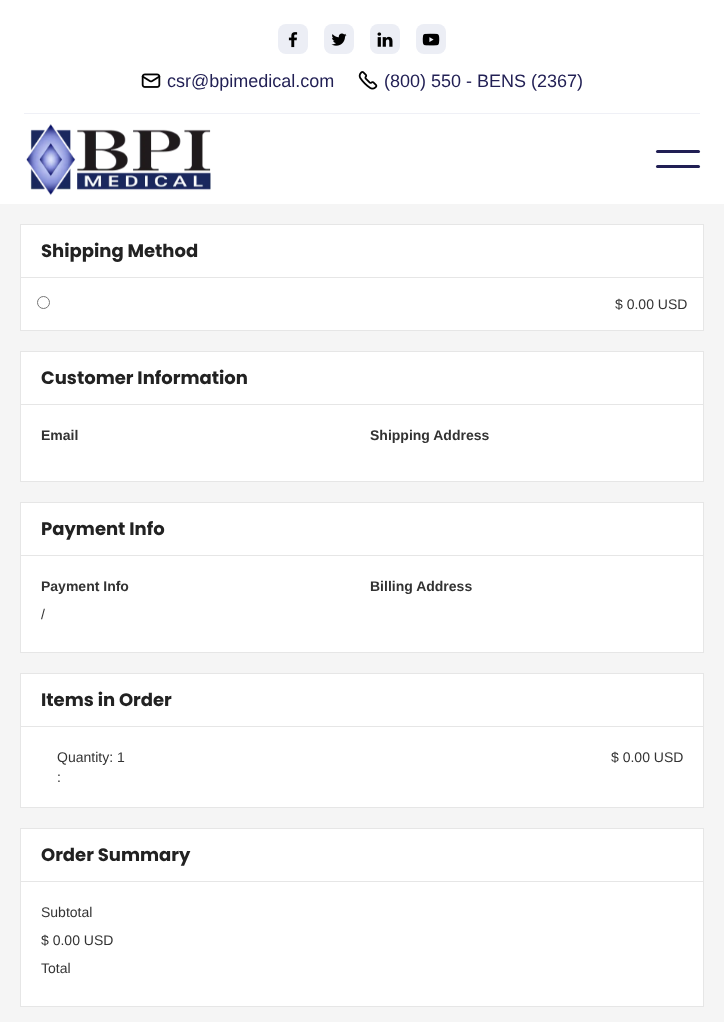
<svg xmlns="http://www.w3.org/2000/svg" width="724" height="1022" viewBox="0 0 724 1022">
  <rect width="100%" height="100%" fill="rgb(255,255,255)"/>
  <rect x="24" y="113" width="676" height="1" fill="rgb(239,240,246)"/>
  <rect x="278" y="24" width="30" height="30" rx="8" fill="rgb(236,238,245)"/>
  <image x="288" y="32" width="10" height="16" href="pic1.png"/>
  <rect x="324" y="24" width="30" height="30" rx="8" fill="rgb(236,238,245)"/>
  <image x="331" y="33" width="16" height="13" href="pic2.png"/>
  <rect x="370" y="24" width="30" height="30" rx="8" fill="rgb(236,238,245)"/>
  <image x="377" y="32" width="16" height="15" href="pic3.png"/>
  <rect x="416" y="24" width="30" height="30" rx="8" fill="rgb(236,238,245)"/>
  <image x="422" y="33" width="18" height="13" href="pic4.png"/>
  <image x="141" y="73" width="20" height="15" href="pic5.png"/>
  <text x="167" y="87" font-family="Liberation Sans" font-size="18" fill="rgb(33,31,84)">csr@bpimedical.com</text>
  <image x="358" y="71" width="20" height="19" href="pic6.png"/>
  <text x="384" y="87" font-family="Liberation Sans" font-size="18" fill="rgb(33,31,84)">(800) 550 - BENS (2367)</text>
  <image x="26" y="124" width="185" height="72" href="pic7.png"/>
  <rect x="656" y="150" width="44" height="3" rx="1.5" fill="rgb(33,31,84)"/>
  <rect x="656" y="165" width="44" height="3" rx="1.5" fill="rgb(33,31,84)"/>
  <rect x="0" y="204" width="724" height="818" fill="rgb(245,245,245)"/>
  <rect x="20.5" y="224.5" width="683" height="53" fill="rgb(255,255,255)" stroke="rgb(230,230,230)"/>
  <text x="41" y="257" font-family="Poppins" font-size="18" font-weight="bold" fill="rgb(34,34,34)">Shipping Method</text>
  <rect x="703" y="278" width="1" height="53" fill="rgb(230,230,230)"/>
  <rect x="20" y="278" width="1" height="53" fill="rgb(230,230,230)"/>
  <rect x="21" y="278" width="682" height="52" fill="rgb(255,255,255)"/>
  <rect x="21" y="330" width="682" height="1" fill="rgb(230,230,230)"/>
  <circle cx="43.5" cy="302.5" r="6" fill="none" stroke="rgb(118,118,118)"/>
  <text x="615" y="309" font-family="Liberation Sans" font-size="14" fill="rgb(51,51,51)">$ 0.00 USD</text>
  <rect x="20.5" y="351.5" width="683" height="53" fill="rgb(255,255,255)" stroke="rgb(230,230,230)"/>
  <text x="41" y="384" font-family="Poppins" font-size="18" font-weight="bold" fill="rgb(34,34,34)">Customer Information</text>
  <rect x="21" y="405" width="682" height="76" fill="rgb(255,255,255)"/>
  <rect x="703" y="405" width="1" height="77" fill="rgb(230,230,230)"/>
  <rect x="20" y="481" width="684" height="1" fill="rgb(230,230,230)"/>
  <rect x="20" y="405" width="1" height="77" fill="rgb(230,230,230)"/>
  <g font-family="Liberation Sans" font-size="14" font-weight="bold" fill="rgb(51,51,51)">
    <text x="41" y="440">Email</text>
    <text x="370" y="440">Shipping Address</text>
  </g>
  <rect x="20.5" y="502.5" width="683" height="53" fill="rgb(255,255,255)" stroke="rgb(230,230,230)"/>
  <text x="41" y="535" font-family="Poppins" font-size="18" font-weight="bold" fill="rgb(34,34,34)">Payment Info</text>
  <rect x="21" y="556" width="682" height="96" fill="rgb(255,255,255)"/>
  <rect x="703" y="556" width="1" height="97" fill="rgb(230,230,230)"/>
  <rect x="20" y="652" width="684" height="1" fill="rgb(230,230,230)"/>
  <rect x="20" y="556" width="1" height="97" fill="rgb(230,230,230)"/>
  <text x="41" y="591" font-family="Liberation Sans" font-size="14" font-weight="bold" fill="rgb(51,51,51)">Payment Info</text>
  <text x="41" y="619" font-family="Liberation Sans" font-size="14" fill="rgb(51,51,51)">/</text>
  <text x="370" y="591" font-family="Liberation Sans" font-size="14" font-weight="bold" fill="rgb(51,51,51)">Billing Address</text>
  <rect x="20.5" y="673.5" width="683" height="53" fill="rgb(255,255,255)" stroke="rgb(230,230,230)"/>
  <text x="41" y="706" font-family="Poppins" font-size="18" font-weight="bold" fill="rgb(34,34,34)">Items in Order</text>
  <rect x="21" y="727" width="682" height="80" fill="rgb(255,255,255)"/>
  <rect x="703" y="727" width="1" height="81" fill="rgb(230,230,230)"/>
  <rect x="20" y="807" width="684" height="1" fill="rgb(230,230,230)"/>
  <rect x="20" y="727" width="1" height="81" fill="rgb(230,230,230)"/>
  <g font-family="Liberation Sans" font-size="14" fill="rgb(51,51,51)">
    <text>
      <tspan x="57" y="762">Quantity: 1</tspan>
      <tspan x="57" y="782">:</tspan>
    </text>
    <text x="611" y="762">$ 0.00 USD</text>
  </g>
  <rect x="20.5" y="828.5" width="683" height="53" fill="rgb(255,255,255)" stroke="rgb(230,230,230)"/>
  <text x="41" y="861" font-family="Poppins" font-size="18" font-weight="bold" fill="rgb(34,34,34)">Order Summary</text>
  <rect x="21" y="882" width="682" height="124" fill="rgb(255,255,255)"/>
  <rect x="703" y="882" width="1" height="125" fill="rgb(230,230,230)"/>
  <rect x="20" y="1006" width="684" height="1" fill="rgb(230,230,230)"/>
  <rect x="20" y="882" width="1" height="125" fill="rgb(230,230,230)"/>
  <g font-family="Liberation Sans" font-size="14" fill="rgb(51,51,51)">
    <text x="41" y="917">Subtotal</text>
    <text x="41" y="945">$ 0.00 USD</text>
    <text x="41" y="973">Total</text>
  </g>
</svg>
